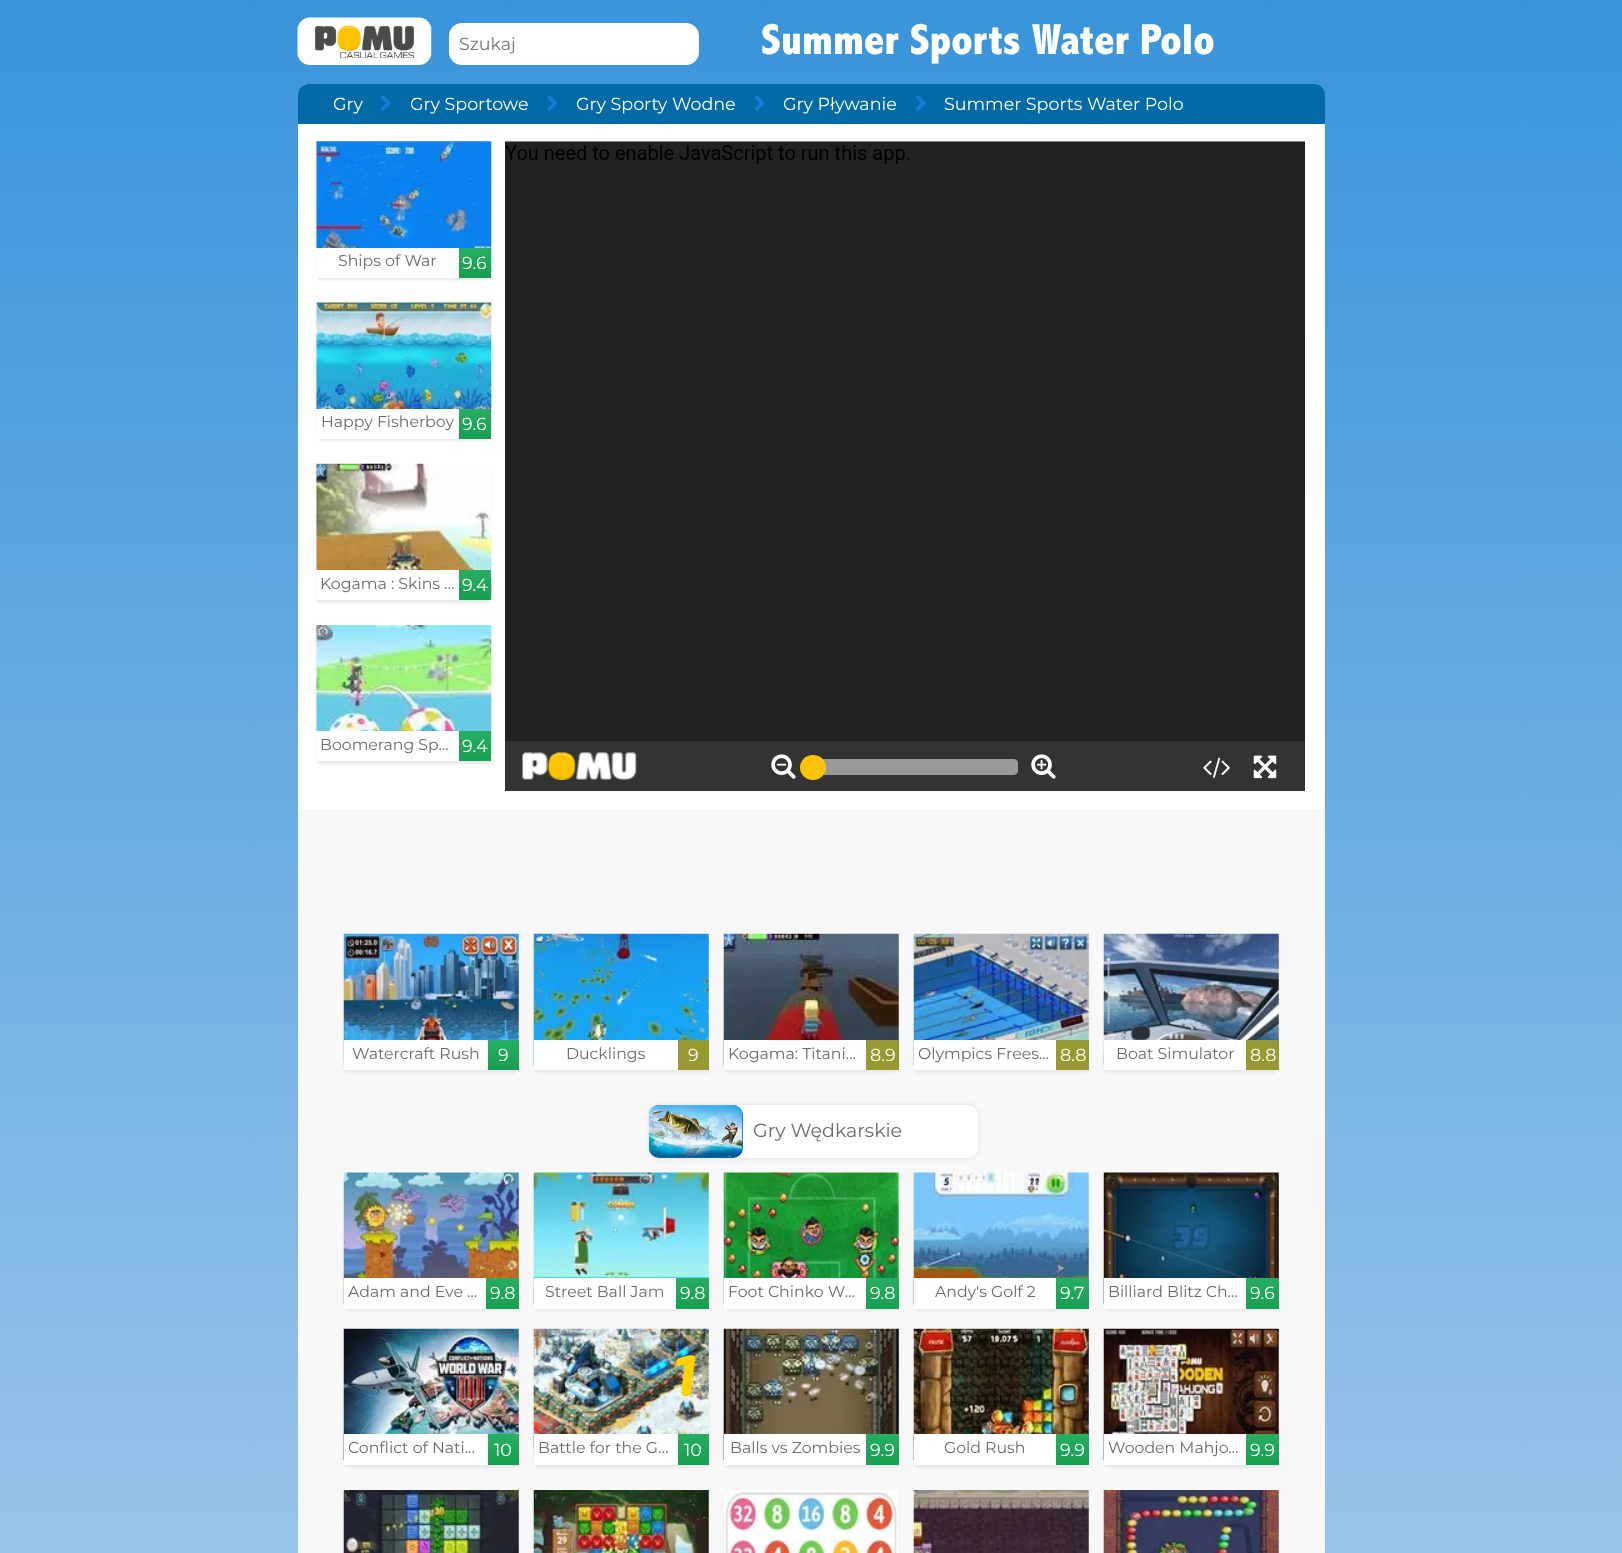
<svg xmlns="http://www.w3.org/2000/svg" width="1622" height="1553" viewBox="0 0 1622 1553">
  <defs>
    <linearGradient id="g1" gradientUnits="userSpaceOnUse" x1="811" y1="0" x2="811" y2="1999"><stop offset="0" stop-color="rgb(57,148,219)"/><stop offset="1" stop-color="rgb(180,209,237)"/></linearGradient>
    <linearGradient id="g2" gradientUnits="userSpaceOnUse" x1="475" y1="248" x2="475" y2="278"><stop offset="0" stop-color="rgb(39,174,97)"/><stop offset="1" stop-color="rgb(24,158,80)"/></linearGradient>
    <linearGradient id="g3" gradientUnits="userSpaceOnUse" x1="475" y1="409" x2="475" y2="439"><stop offset="0" stop-color="rgb(39,174,97)"/><stop offset="1" stop-color="rgb(24,158,80)"/></linearGradient>
    <linearGradient id="g4" gradientUnits="userSpaceOnUse" x1="475" y1="570" x2="475" y2="600"><stop offset="0" stop-color="rgb(39,174,97)"/><stop offset="1" stop-color="rgb(24,158,80)"/></linearGradient>
    <linearGradient id="g5" gradientUnits="userSpaceOnUse" x1="475" y1="731" x2="475" y2="761"><stop offset="0" stop-color="rgb(39,174,97)"/><stop offset="1" stop-color="rgb(24,158,80)"/></linearGradient>
    <linearGradient id="g6" gradientUnits="userSpaceOnUse" x1="503" y1="1040" x2="503" y2="1070"><stop offset="0" stop-color="rgb(39,174,97)"/><stop offset="1" stop-color="rgb(24,158,80)"/></linearGradient>
    <linearGradient id="g7" gradientUnits="userSpaceOnUse" x1="503" y1="1278" x2="503" y2="1309"><stop offset="0" stop-color="rgb(39,174,97)"/><stop offset="1" stop-color="rgb(24,158,80)"/></linearGradient>
    <linearGradient id="g8" gradientUnits="userSpaceOnUse" x1="693" y1="1278" x2="693" y2="1309"><stop offset="0" stop-color="rgb(39,174,97)"/><stop offset="1" stop-color="rgb(24,158,80)"/></linearGradient>
    <linearGradient id="g9" gradientUnits="userSpaceOnUse" x1="883" y1="1278" x2="883" y2="1309"><stop offset="0" stop-color="rgb(39,174,97)"/><stop offset="1" stop-color="rgb(24,158,80)"/></linearGradient>
    <linearGradient id="g10" gradientUnits="userSpaceOnUse" x1="1073" y1="1278" x2="1073" y2="1309"><stop offset="0" stop-color="rgb(39,174,97)"/><stop offset="1" stop-color="rgb(24,158,80)"/></linearGradient>
    <linearGradient id="g11" gradientUnits="userSpaceOnUse" x1="1263" y1="1278" x2="1263" y2="1309"><stop offset="0" stop-color="rgb(39,174,97)"/><stop offset="1" stop-color="rgb(24,158,80)"/></linearGradient>
    <linearGradient id="g12" gradientUnits="userSpaceOnUse" x1="503" y1="1434" x2="503" y2="1465"><stop offset="0" stop-color="rgb(39,174,97)"/><stop offset="1" stop-color="rgb(24,158,80)"/></linearGradient>
    <linearGradient id="g13" gradientUnits="userSpaceOnUse" x1="693" y1="1434" x2="693" y2="1465"><stop offset="0" stop-color="rgb(39,174,97)"/><stop offset="1" stop-color="rgb(24,158,80)"/></linearGradient>
    <linearGradient id="g14" gradientUnits="userSpaceOnUse" x1="883" y1="1434" x2="883" y2="1465"><stop offset="0" stop-color="rgb(39,174,97)"/><stop offset="1" stop-color="rgb(24,158,80)"/></linearGradient>
    <linearGradient id="g15" gradientUnits="userSpaceOnUse" x1="1073" y1="1434" x2="1073" y2="1465"><stop offset="0" stop-color="rgb(39,174,97)"/><stop offset="1" stop-color="rgb(24,158,80)"/></linearGradient>
    <linearGradient id="g16" gradientUnits="userSpaceOnUse" x1="1263" y1="1434" x2="1263" y2="1465"><stop offset="0" stop-color="rgb(39,174,97)"/><stop offset="1" stop-color="rgb(24,158,80)"/></linearGradient>
  </defs>
  <rect width="100%" height="100%" fill="rgb(255,255,255)"/>
  <rect x="0" y="0" width="1622" height="1553" fill="url(#g1)"/>
  <image x="297" y="17" width="135" height="48" href="pic1.png"/>
  <rect x="449" y="23" width="250" height="42" rx="13" fill="rgb(255,255,255)"/>
  <text x="459" y="50" font-family="Montserrat" font-size="17.5" fill="rgb(117,117,117)">Szukaj</text>
  <text x="761" y="54" font-family="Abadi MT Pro" font-size="43.75" font-weight="800" fill="rgb(255,255,255)">Summer Sports Water Polo</text>
  <path d="M308 84H1315C1320.5 84 1325 88.5 1325 94V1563H298V94C298 88.5 302.5 84 308 84Z" fill="rgb(248,248,248)"/>
  <path d="M308 84H1315C1320.5 84 1325 88.5 1325 94V124H298V94C298 88.5 302.5 84 308 84Z" fill="rgb(2,106,167)"/>
  <text x="333" y="110" font-family="Montserrat" font-size="17.5" fill="rgb(255,255,255)">Gry</text>
  <image x="381" y="95" width="10" height="16" href="pic2.png"/>
  <text x="410" y="110" font-family="Montserrat" font-size="17.5" fill="rgb(255,255,255)">Gry Sportowe</text>
  <image x="547" y="95" width="11" height="16" href="pic3.png"/>
  <text x="576" y="110" font-family="Montserrat" font-size="17.5" fill="rgb(255,255,255)">Gry Sporty Wodne</text>
  <image x="754" y="95" width="11" height="16" href="pic4.png"/>
  <text x="783" y="110" font-family="Montserrat" font-size="17.5" fill="rgb(255,255,255)">Gry Pływanie</text>
  <image x="916" y="95" width="10" height="16" href="pic2.png"/>
  <text x="944" y="110" font-family="Montserrat" font-size="17.5" fill="rgb(255,255,255)">Summer Sports Water Polo</text>
  <rect x="298" y="124" width="1027" height="685" fill="rgb(255,255,255)"/>
  <rect x="316" y="144" width="175" height="136" rx="5" fill="rgb(233,233,233)" filter="blur(1px)"/>
  <rect x="316" y="143" width="175" height="105" fill="rgb(255,255,255)"/>
  <image x="316" y="141" width="176" height="132" href="pic5.png"/>
  <rect x="316" y="248" width="143" height="30" fill="rgb(255,255,255)"/>
  <text x="338" y="266" font-family="Montserrat" font-size="15.75" fill="rgb(107,107,107)">Ships of War</text>
  <rect x="459" y="248" width="32" height="30" fill="url(#g2)"/>
  <text x="462" y="269" font-family="Montserrat" font-size="17.5" fill="rgb(255,255,255)">9.6</text>
  <rect x="316" y="305" width="175" height="136" rx="5" fill="rgb(233,233,233)" filter="blur(1px)"/>
  <rect x="316" y="303" width="1" height="106" fill="rgb(255,255,255)"/>
  <image x="316" y="302" width="176" height="132" href="pic6.png"/>
  <rect x="316" y="409" width="143" height="30" fill="rgb(255,255,255)"/>
  <text x="321" y="427" font-family="Montserrat" font-size="15.75" fill="rgb(107,107,107)">Happy Fisherboy</text>
  <rect x="459" y="409" width="32" height="30" fill="url(#g3)"/>
  <text x="462" y="430" font-family="Montserrat" font-size="17.5" fill="rgb(255,255,255)">9.6</text>
  <rect x="316" y="466" width="175" height="137" rx="5" fill="rgb(233,233,233)" filter="blur(1px)"/>
  <rect x="316" y="464" width="1" height="106" fill="rgb(255,255,255)"/>
  <image x="316" y="463" width="176" height="132" href="pic7.png"/>
  <rect x="316" y="570" width="143" height="30" fill="rgb(255,255,255)"/>
  <text x="320" y="589" font-family="Montserrat" font-size="15.75" fill="rgb(107,107,107)">Kogama : Skins …</text>
  <rect x="459" y="570" width="32" height="30" fill="url(#g4)"/>
  <text x="462" y="591" font-family="Montserrat" font-size="17.5" fill="rgb(255,255,255)">9.4</text>
  <rect x="316" y="628" width="175" height="136" rx="5" fill="rgb(233,233,233)" filter="blur(1px)"/>
  <rect x="316" y="625" width="1" height="106" fill="rgb(255,255,255)"/>
  <image x="316" y="625" width="176" height="132" href="pic8.png"/>
  <rect x="316" y="731" width="143" height="30" fill="rgb(255,255,255)"/>
  <text x="320" y="750" font-family="Montserrat" font-size="15.75" fill="rgb(107,107,107)">Boomerang Sp…</text>
  <rect x="459" y="731" width="32" height="30" fill="url(#g5)"/>
  <text x="462" y="752" font-family="Montserrat" font-size="17.5" fill="rgb(255,255,255)">9.4</text>
  <rect x="505" y="741" width="800" height="50" fill="rgb(51,51,51)"/>
  <image x="505" y="141" width="800" height="601" href="pic9.png"/>
  <image x="522" y="752" width="115" height="28" href="pic10.png"/>
  <image x="771" y="754" width="25" height="25" href="pic11.png"/>
  <rect x="809.5" y="759.5" width="208" height="15" rx="3.5" fill="rgb(153,153,153)" stroke="rgb(153,153,153)"/>
  <rect x="800" y="755" width="26" height="25" rx="12.5" fill="rgb(254,195,4)"/>
  <image x="1031" y="754" width="25" height="25" href="pic12.png"/>
  <image x="1203" y="757" width="27" height="21" href="pic13.png"/>
  <image x="1253" y="755" width="24" height="24" href="pic14.png"/>
  <rect x="344" y="936" width="175" height="137" rx="5" fill="rgb(233,233,233)" filter="blur(1px)"/>
  <image x="343" y="933" width="176" height="132" href="pic15.png"/>
  <rect x="344" y="1040" width="144" height="30" fill="rgb(255,255,255)"/>
  <text x="352" y="1059" font-family="Montserrat" font-size="15.75" fill="rgb(107,107,107)">Watercraft Rush</text>
  <rect x="488" y="1040" width="31" height="30" fill="url(#g6)"/>
  <text x="498" y="1061" font-family="Montserrat" font-size="17.5" fill="rgb(255,255,255)">9</text>
  <rect x="534" y="936" width="175" height="137" rx="5" fill="rgb(233,233,233)" filter="blur(1px)"/>
  <image x="533" y="933" width="176" height="132" href="pic16.png"/>
  <rect x="534" y="1040" width="144" height="30" fill="rgb(255,255,255)"/>
  <text x="566" y="1059" font-family="Montserrat" font-size="15.75" fill="rgb(107,107,107)">Ducklings</text>
  <rect x="678" y="1040" width="31" height="30" fill="rgb(153,153,51)"/>
  <text x="688" y="1061" font-family="Montserrat" font-size="17.5" fill="rgb(255,255,255)">9</text>
  <rect x="724" y="936" width="175" height="137" rx="5" fill="rgb(233,233,233)" filter="blur(1px)"/>
  <image x="723" y="933" width="176" height="132" href="pic17.png"/>
  <rect x="724" y="1040" width="142" height="30" fill="rgb(255,255,255)"/>
  <text x="728" y="1059" font-family="Montserrat" font-size="15.75" fill="rgb(107,107,107)">Kogama: Titani…</text>
  <rect x="866" y="1040" width="33" height="30" fill="rgb(153,153,51)"/>
  <text x="870" y="1061" font-family="Montserrat" font-size="17.5" fill="rgb(255,255,255)">8.9</text>
  <rect x="914" y="936" width="175" height="137" rx="5" fill="rgb(233,233,233)" filter="blur(1px)"/>
  <image x="913" y="933" width="176" height="132" href="pic18.png"/>
  <rect x="914" y="1040" width="142" height="30" fill="rgb(255,255,255)"/>
  <text x="918" y="1059" font-family="Montserrat" font-size="15.75" fill="rgb(107,107,107)">Olympics Frees…</text>
  <rect x="1056" y="1040" width="33" height="30" fill="rgb(153,153,51)"/>
  <text x="1060" y="1061" font-family="Montserrat" font-size="17.5" fill="rgb(255,255,255)">8.8</text>
  <rect x="1104" y="936" width="175" height="137" rx="5" fill="rgb(233,233,233)" filter="blur(1px)"/>
  <image x="1103" y="933" width="176" height="132" href="pic19.png"/>
  <rect x="1104" y="1040" width="142" height="30" fill="rgb(255,255,255)"/>
  <text x="1116" y="1059" font-family="Montserrat" font-size="15.75" fill="rgb(107,107,107)">Boat Simulator</text>
  <rect x="1246" y="1040" width="33" height="30" fill="rgb(153,153,51)"/>
  <text x="1250" y="1061" font-family="Montserrat" font-size="17.5" fill="rgb(255,255,255)">8.8</text>
  <rect x="649" y="1105" width="329" height="53" rx="10" fill="rgb(217,217,217)" filter="blur(2px)"/>
  <rect x="649" y="1105" width="329" height="53" rx="10" fill="rgb(255,255,255)"/>
  <rect x="649" y="1105" width="94" height="53" rx="10" fill="rgb(2,106,167)"/>
  <image x="649" y="1105" width="94" height="53" href="pic20.png"/>
  <text x="753" y="1137" font-family="Montserrat" font-size="19" fill="rgb(107,107,107)">Gry Wędkarskie</text>
  <rect x="344" y="1175" width="175" height="136" rx="5" fill="rgb(233,233,233)" filter="blur(1px)"/>
  <image x="343" y="1172" width="176" height="132" href="pic21.png"/>
  <rect x="344" y="1278" width="142" height="31" fill="rgb(255,255,255)"/>
  <text x="348" y="1297" font-family="Montserrat" font-size="15.75" fill="rgb(107,107,107)">Adam and Eve …</text>
  <rect x="486" y="1278" width="33" height="31" fill="url(#g7)"/>
  <text x="490" y="1299" font-family="Montserrat" font-size="17.5" fill="rgb(255,255,255)">9.8</text>
  <rect x="534" y="1175" width="175" height="136" rx="5" fill="rgb(233,233,233)" filter="blur(1px)"/>
  <image x="533" y="1172" width="176" height="132" href="pic22.png"/>
  <rect x="534" y="1278" width="142" height="31" fill="rgb(255,255,255)"/>
  <text x="545" y="1297" font-family="Montserrat" font-size="15.75" fill="rgb(107,107,107)">Street Ball Jam</text>
  <rect x="676" y="1278" width="33" height="31" fill="url(#g8)"/>
  <text x="680" y="1299" font-family="Montserrat" font-size="17.5" fill="rgb(255,255,255)">9.8</text>
  <rect x="724" y="1175" width="175" height="136" rx="5" fill="rgb(233,233,233)" filter="blur(1px)"/>
  <image x="723" y="1172" width="176" height="132" href="pic23.png"/>
  <rect x="724" y="1278" width="142" height="31" fill="rgb(255,255,255)"/>
  <text x="728" y="1297" font-family="Montserrat" font-size="15.75" fill="rgb(107,107,107)">Foot Chinko W…</text>
  <rect x="866" y="1278" width="33" height="31" fill="url(#g9)"/>
  <text x="870" y="1299" font-family="Montserrat" font-size="17.5" fill="rgb(255,255,255)">9.8</text>
  <rect x="914" y="1175" width="175" height="136" rx="5" fill="rgb(233,233,233)" filter="blur(1px)"/>
  <image x="913" y="1172" width="176" height="132" href="pic24.png"/>
  <rect x="914" y="1278" width="142" height="31" fill="rgb(255,255,255)"/>
  <text x="935" y="1297" font-family="Montserrat" font-size="15.75" fill="rgb(107,107,107)">Andy's Golf 2</text>
  <rect x="1056" y="1278" width="33" height="31" fill="url(#g10)"/>
  <text x="1060" y="1299" font-family="Montserrat" font-size="17.5" fill="rgb(255,255,255)">9.7</text>
  <rect x="1104" y="1175" width="175" height="136" rx="5" fill="rgb(233,233,233)" filter="blur(1px)"/>
  <image x="1103" y="1172" width="176" height="132" href="pic25.png"/>
  <rect x="1104" y="1278" width="142" height="31" fill="rgb(255,255,255)"/>
  <text x="1108" y="1297" font-family="Montserrat" font-size="15.75" fill="rgb(107,107,107)">Billiard Blitz Ch…</text>
  <rect x="1246" y="1278" width="33" height="31" fill="url(#g11)"/>
  <text x="1250" y="1299" font-family="Montserrat" font-size="17.5" fill="rgb(255,255,255)">9.6</text>
  <rect x="344" y="1331" width="175" height="137" rx="5" fill="rgb(233,233,233)" filter="blur(1px)"/>
  <image x="343" y="1328" width="176" height="132" href="pic26.png"/>
  <rect x="344" y="1434" width="144" height="31" fill="rgb(255,255,255)"/>
  <text x="348" y="1453" font-family="Montserrat" font-size="15.75" fill="rgb(107,107,107)">Conflict of Nati…</text>
  <rect x="488" y="1434" width="31" height="31" fill="url(#g12)"/>
  <text x="494" y="1456" font-family="Montserrat" font-size="17.5" fill="rgb(255,255,255)">10</text>
  <rect x="534" y="1331" width="175" height="137" rx="5" fill="rgb(233,233,233)" filter="blur(1px)"/>
  <image x="533" y="1328" width="176" height="132" href="pic27.png"/>
  <text x="672" y="1396" font-family="Pacifico" font-size="70" fill="rgb(255,210,3)">1</text>
  <rect x="534" y="1434" width="144" height="31" fill="rgb(255,255,255)"/>
  <text x="538" y="1453" font-family="Montserrat" font-size="15.75" fill="rgb(107,107,107)">Battle for the G…</text>
  <rect x="678" y="1434" width="31" height="31" fill="url(#g13)"/>
  <text x="684" y="1456" font-family="Montserrat" font-size="17.5" fill="rgb(255,255,255)">10</text>
  <rect x="724" y="1331" width="175" height="137" rx="5" fill="rgb(233,233,233)" filter="blur(1px)"/>
  <image x="723" y="1328" width="176" height="132" href="pic28.png"/>
  <rect x="724" y="1434" width="142" height="31" fill="rgb(255,255,255)"/>
  <text x="730" y="1453" font-family="Montserrat" font-size="15.75" fill="rgb(107,107,107)">Balls vs Zombies</text>
  <rect x="866" y="1434" width="33" height="31" fill="url(#g14)"/>
  <text x="870" y="1456" font-family="Montserrat" font-size="17.5" fill="rgb(255,255,255)">9.9</text>
  <rect x="914" y="1331" width="175" height="137" rx="5" fill="rgb(233,233,233)" filter="blur(1px)"/>
  <image x="913" y="1328" width="176" height="132" href="pic29.png"/>
  <rect x="914" y="1434" width="142" height="31" fill="rgb(255,255,255)"/>
  <text x="944" y="1453" font-family="Montserrat" font-size="15.75" fill="rgb(107,107,107)">Gold Rush</text>
  <rect x="1056" y="1434" width="33" height="31" fill="url(#g15)"/>
  <text x="1060" y="1456" font-family="Montserrat" font-size="17.5" fill="rgb(255,255,255)">9.9</text>
  <rect x="1104" y="1331" width="175" height="137" rx="5" fill="rgb(233,233,233)" filter="blur(1px)"/>
  <image x="1103" y="1328" width="176" height="132" href="pic30.png"/>
  <rect x="1104" y="1434" width="142" height="31" fill="rgb(255,255,255)"/>
  <text x="1108" y="1453" font-family="Montserrat" font-size="15.75" fill="rgb(107,107,107)">Wooden Mahjo…</text>
  <rect x="1246" y="1434" width="33" height="31" fill="url(#g16)"/>
  <text x="1250" y="1456" font-family="Montserrat" font-size="17.5" fill="rgb(255,255,255)">9.9</text>
  <rect x="344" y="1493" width="175" height="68" rx="5" fill="rgb(233,233,233)" filter="blur(1px)"/>
  <image x="343" y="1490" width="176" height="63" href="pic31.png"/>
  <rect x="534" y="1493" width="175" height="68" rx="5" fill="rgb(233,233,233)" filter="blur(1px)"/>
  <image x="533" y="1490" width="176" height="63" href="pic32.png"/>
  <rect x="724" y="1493" width="175" height="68" rx="5" fill="rgb(233,233,233)" filter="blur(1px)"/>
  <image x="724" y="1490" width="175" height="63" href="pic33.png"/>
  <rect x="914" y="1493" width="175" height="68" rx="5" fill="rgb(233,233,233)" filter="blur(1px)"/>
  <image x="913" y="1490" width="176" height="63" href="pic34.png"/>
  <rect x="1104" y="1493" width="175" height="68" rx="5" fill="rgb(233,233,233)" filter="blur(1px)"/>
  <image x="1103" y="1490" width="176" height="63" href="pic35.png"/>
</svg>
